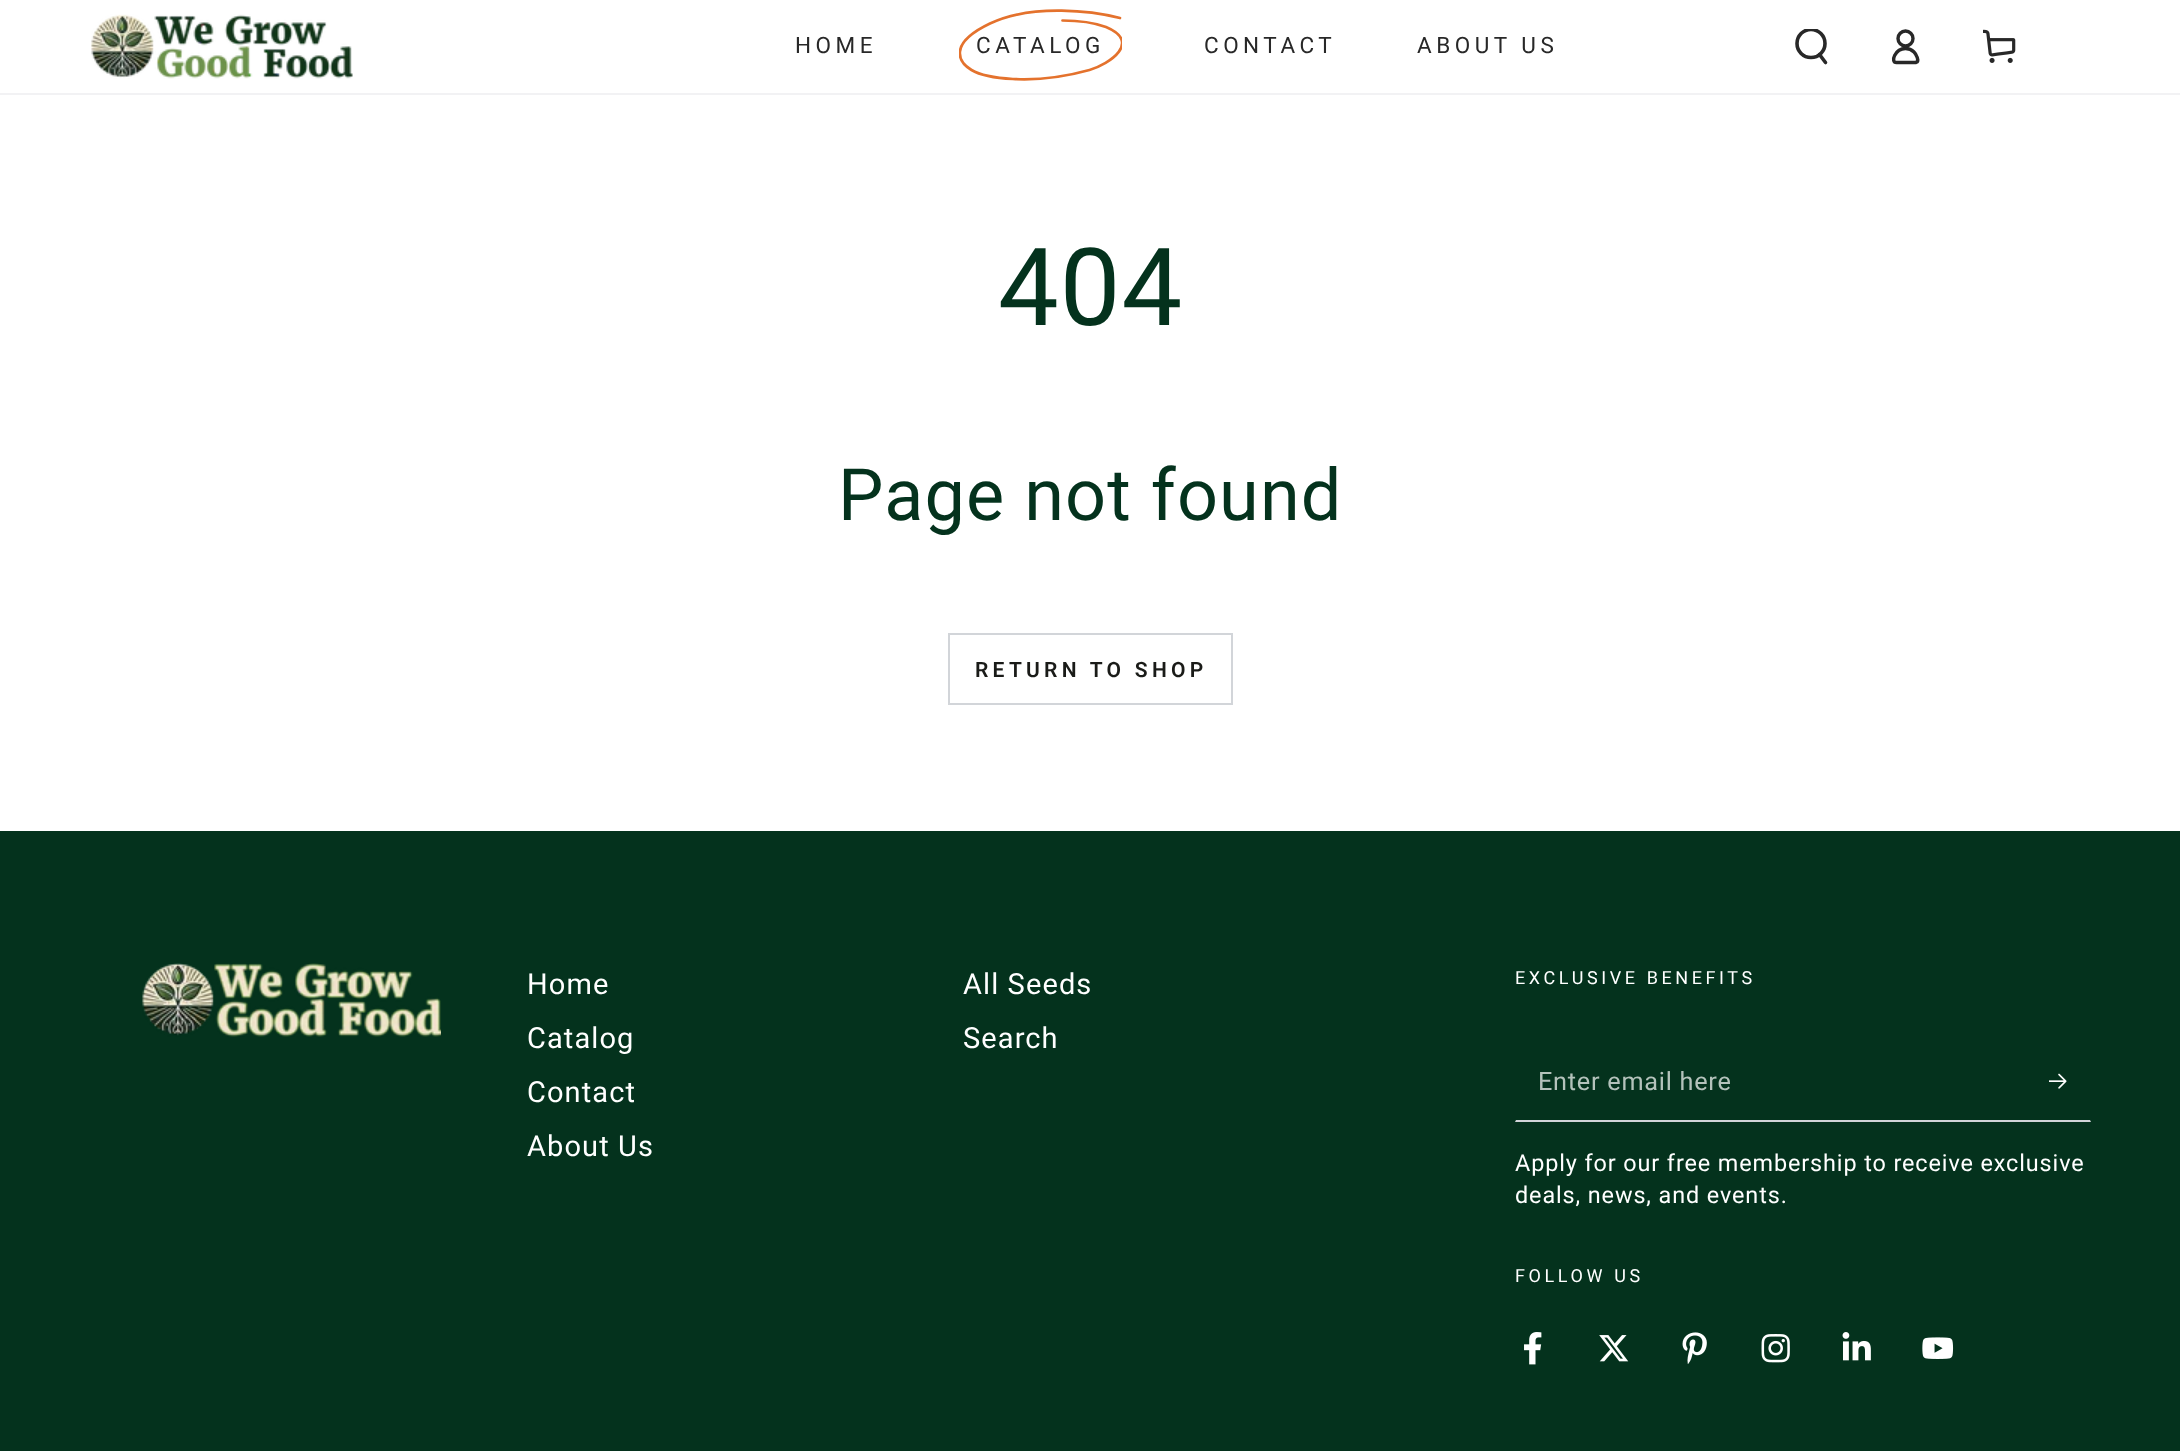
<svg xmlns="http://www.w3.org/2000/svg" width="2180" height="1451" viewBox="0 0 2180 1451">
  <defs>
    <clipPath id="clip1"><rect x="959" y="9" width="163" height="72"/></clipPath>
    <clipPath id="clip2"><rect x="1794" y="29" width="36" height="36"/></clipPath>
  </defs>
  <rect width="100%" height="100%" fill="rgb(255,255,255)"/>
  <rect x="0" y="93" width="2180" height="2" fill="rgb(242,242,244)"/>
  <image x="91" y="14" width="262" height="65" href="pic1.png"/>
  <g font-family="Roboto" font-size="22.5" letter-spacing="4.5" fill="rgb(40,40,40)">
    <text x="795" y="53">HOME</text>
    <text x="976" y="53">CATALOG</text>
  </g>
  <g clip-path="url(#clip1)">
    <path d="M1120 18C1094.5 11.5 1033.5 3 990 23.5C947 44 959 62.5 971.5 70C984 77.5 1030 86.5 1089.5 70C1109.5 64 1142 42 1106 27C1100.5 25 1084.5 20.5 1062.5 20.5" fill="none" stroke="rgb(228,114,45)" stroke-width="2.7" stroke-linecap="round" stroke-linejoin="round"/>
  </g>
  <g font-family="Roboto" font-size="22.5" letter-spacing="4.5" fill="rgb(40,40,40)">
    <text x="1204" y="53">CONTACT</text>
    <text x="1417" y="53">ABOUT US</text>
  </g>
  <g clip-path="url(#clip2)">
    <circle cx="1811" cy="43.5" r="14" fill="none" stroke="rgb(40,40,40)" stroke-width="3.6"/>
  </g>
  <path d="M1819.5 54.5L1825.5 62.5" fill="none" stroke="rgb(40,40,40)" stroke-width="3.6" stroke-linecap="round"/>
  <path d="M1905.5 48.5C1895 48.5 1890 62.5 1896.5 62.5H1916C1920 61 1916 54 1914 52C1912 50 1909 48.5 1905.5 48.5Z" fill="none" stroke="rgb(40,40,40)" stroke-width="3.4"/>
  <circle cx="1905.5" cy="38.5" r="7.5" fill="none" stroke="rgb(40,40,40)" stroke-width="3.4"/>
  <image x="1983" y="29" width="33" height="34" href="pic2.png"/>
  <text x="998" y="325" font-family="Roboto" font-size="108" letter-spacing="1.1" fill="rgb(4,50,29)">404</text>
  <text x="838" y="520" font-family="Roboto" font-size="72" letter-spacing="1.1" fill="rgb(4,50,29)">Page not found</text>
  <rect x="949" y="634" width="283" height="70" fill="none" stroke="rgb(210,213,217)" stroke-width="2"/>
  <text x="975" y="677" font-family="Roboto" font-size="21" font-weight="600" letter-spacing="4.25" fill="rgb(26,27,24)">RETURN TO SHOP</text>
  <rect x="0" y="831" width="2180" height="620" fill="rgb(4,50,29)"/>
  <image x="142" y="963" width="299" height="74" href="pic3.png"/>
  <g font-family="Roboto" font-size="29" letter-spacing="1.1" fill="rgb(255,255,255)">
    <text>
      <tspan x="527" y="994">Home</tspan>
      <tspan x="527" y="1048">Catalog</tspan>
      <tspan x="527" y="1102">Contact</tspan>
      <tspan x="527" y="1156">About Us</tspan>
    </text>
    <text>
      <tspan x="963" y="994">All Seeds</tspan>
      <tspan x="963" y="1048">Search</tspan>
    </text>
  </g>
  <text x="1515" y="984" font-family="Roboto" font-size="18" letter-spacing="3.6" fill="rgb(255,255,255)">EXCLUSIVE BENEFITS</text>
  <path d="M2091 1122H1515L1516 1120H2090Z" fill="rgb(210,213,217)"/>
  <text x="1538" y="1090" font-family="Roboto" font-size="25.25" letter-spacing="0.75" fill="rgb(180,194,187)">Enter email here</text>
  <image x="2049" y="1073" width="18" height="16" href="pic4.png"/>
  <g font-family="Roboto" font-size="23.4" letter-spacing="0.9" fill="rgb(255,255,255)">
    <text>
      <tspan x="1515" y="1171">Apply for our free membership to receive exclusive</tspan>
      <tspan x="1515" y="1203">deals, news, and events.</tspan>
    </text>
  </g>
  <text x="1515" y="1282" font-family="Roboto" font-size="18" letter-spacing="3.6" fill="rgb(255,255,255)">FOLLOW US</text>
  <image x="1524" y="1332" width="18" height="33" href="pic5.png"/>
  <image x="1599" y="1335" width="30" height="27" href="pic6.png"/>
  <image x="1682" y="1332" width="25" height="32" href="pic7.png"/>
  <image x="1761" y="1334" width="29" height="29" href="pic8.png"/>
  <image x="1842" y="1332" width="29" height="29" href="pic9.png"/>
  <image x="1922" y="1337" width="32" height="22" href="pic10.png"/>
</svg>
